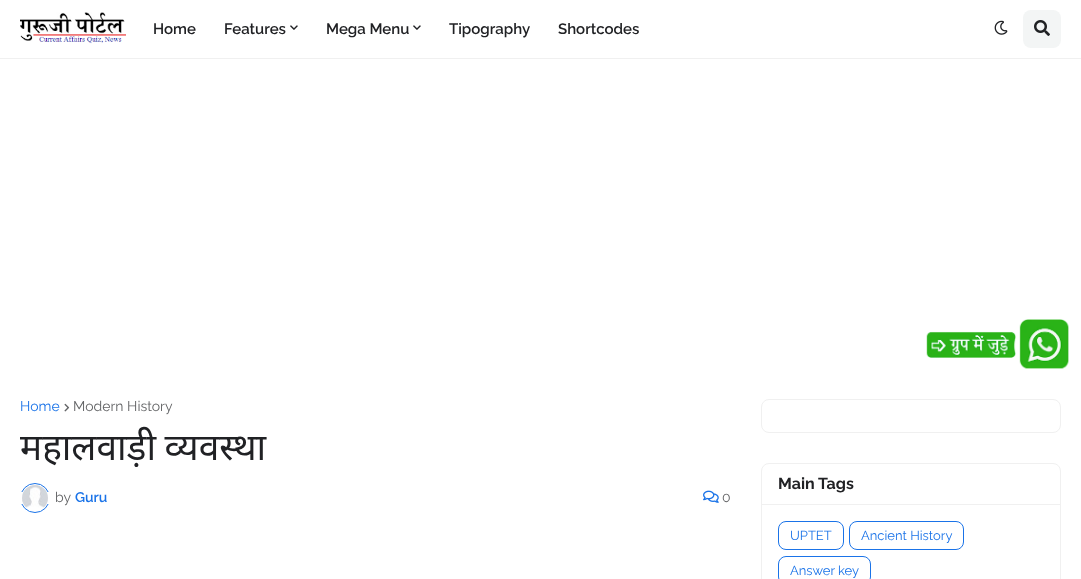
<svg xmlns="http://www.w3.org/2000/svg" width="1081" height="579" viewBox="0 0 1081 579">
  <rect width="100%" height="100%" fill="rgb(255,255,255)"/>
  <rect x="0" y="58" width="1081" height="1" fill="rgb(240,240,240)"/>
  <image x="20" y="12" width="106" height="32" href="pic1.png"/>
  <g font-family="Raleway" font-size="15" font-weight="600" fill="rgb(32,33,36)">
    <text x="153" y="34">Home</text>
    <text x="224" y="34">Features</text>
  </g>
  <image x="290" y="25" width="8" height="5" href="pic2.png"/>
  <text x="326" y="34" font-family="Raleway" font-size="15" font-weight="600" fill="rgb(32,33,36)">Mega Menu</text>
  <image x="413" y="25" width="8" height="5" href="pic2.png"/>
  <g font-family="Raleway" font-size="15" font-weight="600" fill="rgb(32,33,36)">
    <text x="449" y="34">Tipography</text>
    <text x="558" y="34">Shortcodes</text>
  </g>
  <image x="994" y="20" width="14" height="15" href="pic3.png"/>
  <rect x="1023" y="10" width="38" height="38" rx="8" fill="rgb(243,245,245)"/>
  <image x="1034" y="20" width="16" height="16" href="pic4.png"/>
  <text x="20" y="411" font-family="Raleway" font-size="14" fill="rgb(26,115,232)">Home</text>
  <image x="64" y="403" width="6" height="9" href="pic5.png"/>
  <text x="73" y="411" font-family="Raleway" font-size="14" fill="rgb(99,100,102)">Modern History</text>
  <text x="20" y="460" word-spacing="-1" font-family="Noto Sans" font-size="37" fill="rgb(32,33,36)">महालवाड़ी व्यवस्था</text>
  <circle cx="35" cy="498" r="14.5" fill="none" stroke="rgb(26,115,232)"/>
  <rect x="20" y="492" width="30" height="12" fill="rgb(255,255,255)"/>
  <image x="22" y="485" width="26" height="23" href="pic6.png"/>
  <text x="55" y="502" font-family="Raleway" font-size="14" fill="rgb(99,100,102)">by</text>
  <text x="75" y="502" font-family="Raleway" font-size="14" font-weight="600" fill="rgb(26,115,232)">Guru</text>
  <image x="703" y="490" width="16" height="13" href="pic7.png"/>
  <text x="722" y="502" font-family="Raleway" font-size="14" fill="rgb(99,100,102)">0</text>
  <rect x="761.5" y="399.5" width="299" height="33" rx="7.5" fill="none" stroke="rgb(240,240,240)"/>
  <image x="926" y="319" width="143" height="50" href="pic8.png"/>
  <rect x="761.5" y="463.5" width="299" height="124" rx="7.5" fill="none" stroke="rgb(240,240,240)"/>
  <rect x="762" y="504" width="298" height="1" fill="rgb(240,240,240)"/>
  <text x="778" y="489" font-family="Raleway" font-size="16" font-weight="bold" fill="rgb(32,33,36)">Main Tags</text>
  <rect x="778.5" y="521.5" width="65" height="28" rx="7.5" fill="none" stroke="rgb(26,115,232)"/>
  <text x="790" y="540" font-family="Raleway" font-size="13" fill="rgb(26,115,232)">UPTET</text>
  <rect x="849.5" y="521.5" width="114" height="28" rx="7.5" fill="none" stroke="rgb(26,115,232)"/>
  <text x="861" y="540" font-family="Raleway" font-size="13" fill="rgb(26,115,232)">Ancient History</text>
  <rect x="778.5" y="556.5" width="92" height="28" rx="7.5" fill="none" stroke="rgb(26,115,232)"/>
  <text x="790" y="575" font-family="Raleway" font-size="13" fill="rgb(26,115,232)">Answer key</text>
</svg>
